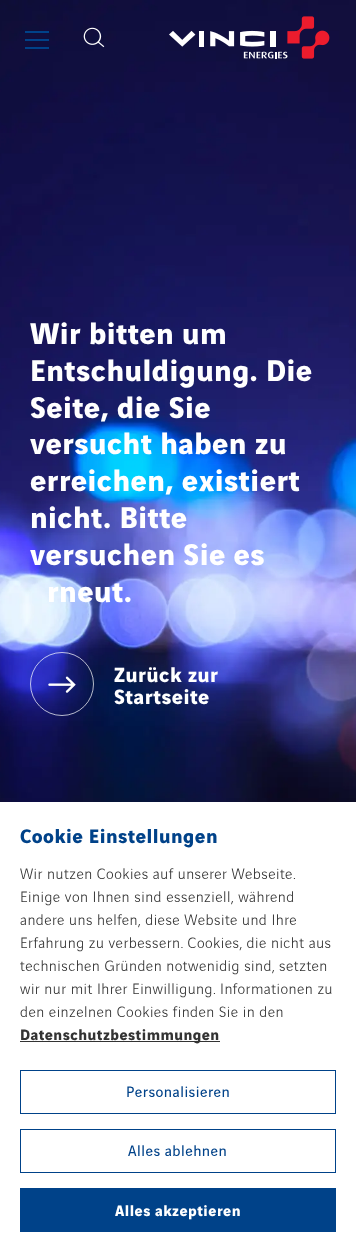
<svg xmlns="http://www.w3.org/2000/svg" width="356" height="1252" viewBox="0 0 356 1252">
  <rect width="100%" height="100%" fill="rgb(255,255,255)"/>
  <image x="0" y="0" width="356" height="802" href="pic3.png"/>
  <rect x="25" y="31" width="24" height="2" fill="rgb(0,66,137)"/>
  <rect x="25" y="39" width="24" height="2" fill="rgb(0,66,137)"/>
  <rect x="25" y="47" width="24" height="2" fill="rgb(0,66,137)"/>
  <image x="83" y="27" width="22" height="21" href="pic1.png"/>
  <image x="169" y="16" width="161" height="43" href="pic2.png"/>
  <g font-family="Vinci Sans" font-size="32" font-weight="bold" letter-spacing="0.5" fill="rgb(255,255,255)">
    <text>
      <tspan x="30" y="344">Wir bitten um</tspan>
      <tspan x="30" y="381">Entschuldigung. Die</tspan>
      <tspan x="30" y="418">Seite, die Sie</tspan>
      <tspan x="30" y="454">versucht haben zu</tspan>
      <tspan x="30" y="491">erreichen, existiert</tspan>
      <tspan x="30" y="528">nicht. Bitte</tspan>
      <tspan x="30" y="565">versuchen Sie es</tspan>
    </text>
    <text x="47" y="602">rneut.</text>
  </g>
  <circle cx="62" cy="684" r="31.5" fill="none" stroke="rgba(255,255,255,0.7)"/>
  <image x="48" y="676" width="28" height="17" href="pic4.png"/>
  <g font-family="Vinci Sans" font-size="22" font-weight="bold" letter-spacing="0.5" fill="rgb(255,255,255)">
    <text>
      <tspan x="114" y="682">Zurück zur</tspan>
      <tspan x="114" y="704">Startseite</tspan>
    </text>
  </g>
  <text x="20" y="843" font-family="Vinci Sans" font-size="21" font-weight="bold" letter-spacing="0.5" fill="rgb(0,66,137)">Cookie Einstellungen</text>
  <g font-family="Vinci Sans" font-size="16" font-weight="300" letter-spacing="0.5" fill="rgb(51,51,51)">
    <text>
      <tspan x="20" y="879">Wir nutzen Cookies auf unserer Webseite.</tspan>
      <tspan x="20" y="902">Einige von Ihnen sind essenziell, während</tspan>
      <tspan x="20" y="925">andere uns helfen, diese Website und Ihre</tspan>
      <tspan x="20" y="948">Erfahrung zu verbessern. Cookies, die nicht aus</tspan>
      <tspan x="20" y="971">technischen Gründen notwenidig sind, setzten</tspan>
      <tspan x="20" y="994">wir nur mit Ihrer Einwilligung. Informationen zu</tspan>
      <tspan x="20" y="1017">den einzelnen Cookies finden Sie in den</tspan>
    </text>
  </g>
  <rect x="20" y="1041" width="200" height="1" fill="rgb(51,51,51)"/>
  <text x="20" y="1040" font-family="Vinci Sans" font-size="16" font-weight="bold" letter-spacing="0.5" fill="rgb(51,51,51)">Datenschutzbestimmungen</text>
  <rect x="20.5" y="1070.5" width="315" height="43" fill="none" stroke="rgb(0,66,137)"/>
  <text x="126" y="1097" font-family="Vinci Sans" font-size="16" letter-spacing="0.5" fill="rgb(0,66,137)">Personalisieren</text>
  <rect x="20.5" y="1129.5" width="315" height="43" fill="none" stroke="rgb(0,66,137)"/>
  <text x="128" y="1156" font-family="Vinci Sans" font-size="16" letter-spacing="0.5" fill="rgb(0,66,137)">Alles ablehnen</text>
  <rect x="20" y="1188" width="316" height="44" fill="rgb(0,66,137)"/>
  <text x="115" y="1216" font-family="Vinci Sans" font-size="16" font-weight="bold" letter-spacing="0.5" fill="rgb(255,255,255)">Alles akzeptieren</text>
</svg>
